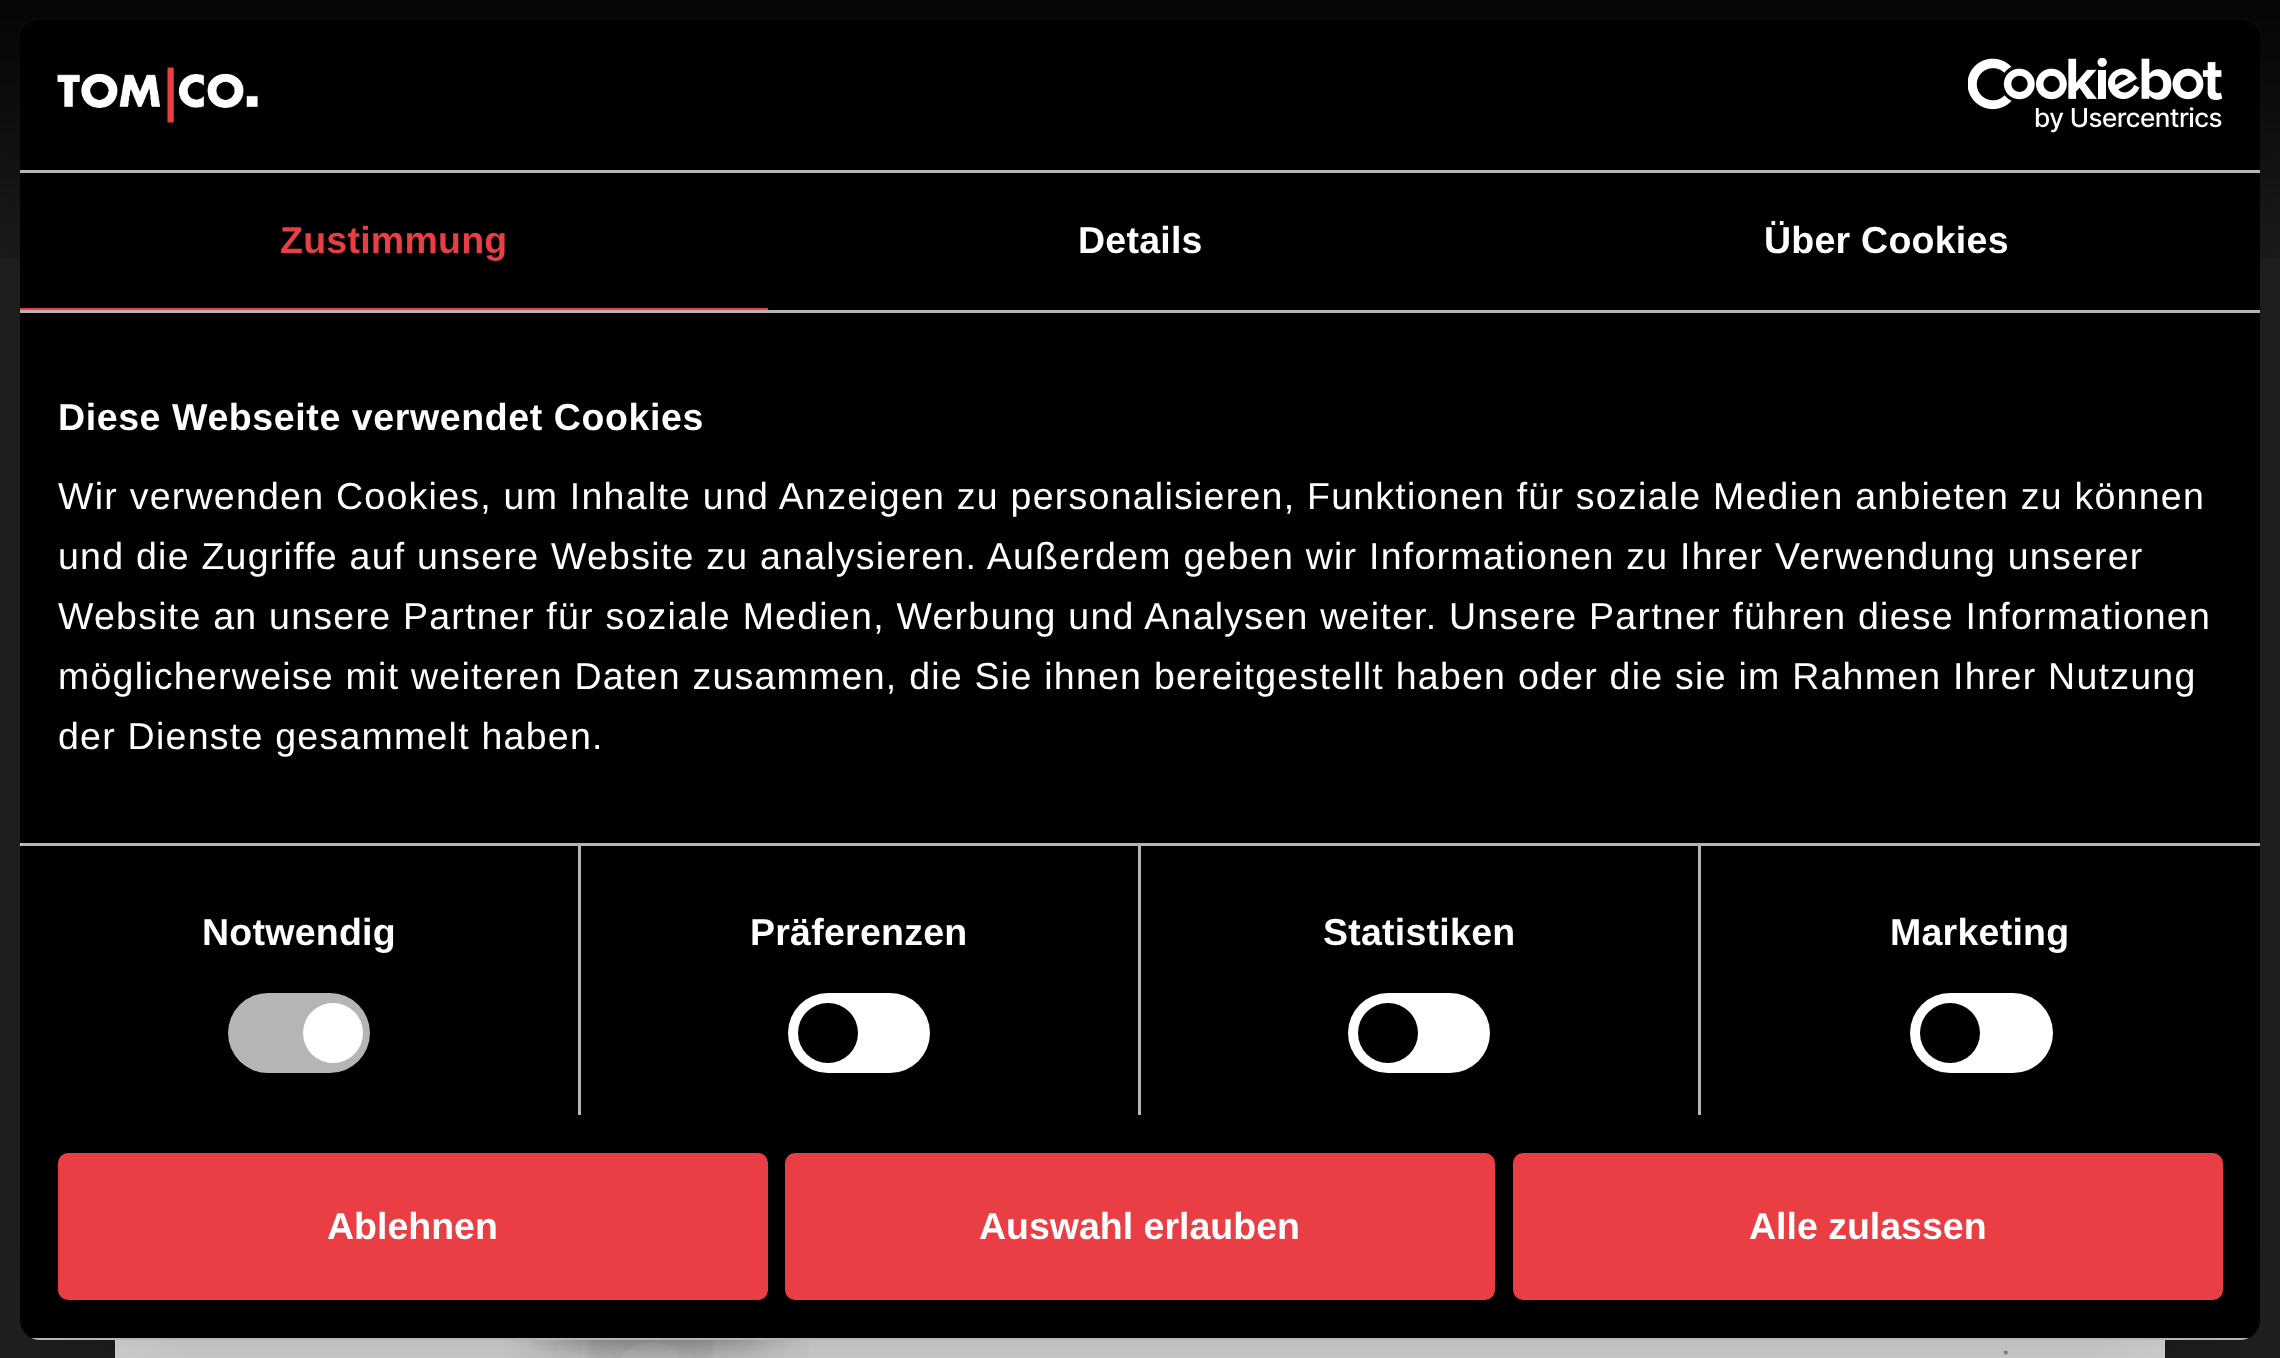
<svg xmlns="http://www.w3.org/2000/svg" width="2280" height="1358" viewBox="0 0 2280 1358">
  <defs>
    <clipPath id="clip1"><rect x="20" y="20" width="2240" height="1320" rx="20"/></clipPath>
  </defs>
  <rect width="100%" height="100%" fill="rgb(35,35,35)"/>
  <image x="0" y="0" width="2280" height="259" href="pic3.png"/>
  <rect x="115" y="1340" width="2050" height="18" fill="rgb(255,255,255)"/>
  <image x="504" y="1340" width="305" height="18" href="pic4.png"/>
  <rect x="20" y="100" width="2240" height="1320" rx="20" fill="rgba(0,0,0,0.3)" filter="blur(85px)"/>
  <rect x="20" y="20" width="2240" height="1320" rx="20" fill="rgb(0,0,0)"/>
  <rect x="20" y="170" width="2240" height="3" fill="rgb(181,181,181)"/>
  <image x="57" y="67" width="201" height="56" href="pic1.png"/>
  <image x="1968" y="58" width="255" height="75" href="pic2.png"/>
  <rect x="20" y="310" width="2240" height="3" fill="rgb(181,181,181)"/>
  <rect x="20" y="308" width="748" height="2" fill="rgb(232,62,68)"/>
  <text x="280" y="253" font-family="Liberation Sans" font-size="37.5" font-weight="bold" letter-spacing="0.25" fill="rgb(232,62,68)">Zustimmung</text>
  <g font-family="Liberation Sans" font-size="37.5" font-weight="bold" letter-spacing="0.25" fill="rgb(255,255,255)">
    <text x="1078" y="253">Details</text>
    <text x="1764" y="253">Über Cookies</text>
  </g>
  <rect x="578" y="845" width="3" height="270" fill="rgb(181,181,181)"/>
  <rect x="1138" y="845" width="3" height="270" fill="rgb(181,181,181)"/>
  <rect x="1698" y="845" width="3" height="270" fill="rgb(181,181,181)"/>
  <rect x="20" y="843" width="2240" height="3" fill="rgb(181,181,181)"/>
  <text x="58" y="430" font-family="Liberation Sans" font-size="37.5" font-weight="bold" letter-spacing="0.6" fill="rgb(255,255,255)">Diese Webseite verwendet Cookies</text>
  <g font-family="Liberation Sans" font-size="37.5" letter-spacing="1.25" fill="rgb(255,255,255)">
    <text>
      <tspan x="58" y="509">Wir verwenden Cookies, um Inhalte und Anzeigen zu personalisieren, Funktionen für soziale Medien anbieten zu können</tspan>
      <tspan x="58" y="569">und die Zugriffe auf unsere Website zu analysieren. Außerdem geben wir Informationen zu Ihrer Verwendung unserer</tspan>
      <tspan x="58" y="629">Website an unsere Partner für soziale Medien, Werbung und Analysen weiter. Unsere Partner führen diese Informationen</tspan>
      <tspan x="58" y="689">möglicherweise mit weiteren Daten zusammen, die Sie ihnen bereitgestellt haben oder die sie im Rahmen Ihrer Nutzung</tspan>
      <tspan x="58" y="749">der Dienste gesammelt haben.</tspan>
    </text>
  </g>
  <rect x="20" y="843" width="1" height="3" fill="rgb(221,221,221)"/>
  <text x="202" y="945" font-family="Liberation Sans" font-size="37.5" font-weight="bold" letter-spacing="0.25" fill="rgb(255,255,255)">Notwendig</text>
  <rect x="228" y="993" width="142" height="80" rx="40" fill="rgb(181,181,181)"/>
  <circle cx="333" cy="1033" r="30" fill="rgb(255,255,255)"/>
  <text x="750" y="945" font-family="Liberation Sans" font-size="37.5" font-weight="bold" letter-spacing="0.25" fill="rgb(255,255,255)">Präferenzen</text>
  <rect x="788" y="993" width="142" height="80" rx="40" fill="rgb(255,255,255)"/>
  <circle cx="828" cy="1033" r="30" fill="rgb(0,0,0)"/>
  <text x="1323" y="945" font-family="Liberation Sans" font-size="37.5" font-weight="bold" letter-spacing="0.25" fill="rgb(255,255,255)">Statistiken</text>
  <rect x="1348" y="993" width="142" height="80" rx="40" fill="rgb(255,255,255)"/>
  <circle cx="1388" cy="1033" r="30" fill="rgb(0,0,0)"/>
  <text x="1890" y="945" font-family="Liberation Sans" font-size="37.5" font-weight="bold" letter-spacing="0.25" fill="rgb(255,255,255)">Marketing</text>
  <rect x="1910" y="993" width="143" height="80" rx="40" fill="rgb(255,255,255)"/>
  <circle cx="1950" cy="1033" r="30" fill="rgb(0,0,0)"/>
  <g clip-path="url(#clip1)">
    <rect x="31" y="1338" width="2218" height="2" fill="rgb(181,181,181)"/>
  </g>
  <rect x="60.5" y="1155.5" width="705" height="142" rx="7.5" fill="rgb(232,62,68)" stroke="rgb(232,62,68)" stroke-width="5"/>
  <text x="327" y="1239" font-family="Liberation Sans" font-size="37.5" font-weight="bold" fill="rgb(255,255,255)">Ablehnen</text>
  <rect x="787.5" y="1155.5" width="705" height="142" rx="7.5" fill="rgb(232,62,68)" stroke="rgb(232,62,68)" stroke-width="5"/>
  <text x="979" y="1239" font-family="Liberation Sans" font-size="37.5" font-weight="bold" fill="rgb(255,255,255)">Auswahl erlauben</text>
  <rect x="1515.5" y="1155.5" width="705" height="142" rx="7.5" fill="rgb(232,62,68)" stroke="rgb(232,62,68)" stroke-width="5"/>
  <text x="1749" y="1239" font-family="Liberation Sans" font-size="37.5" font-weight="bold" fill="rgb(255,255,255)">Alle zulassen</text>
  <text x="2001" y="1354" font-family="Cormorant Garamond" font-size="49" fill="rgb(128,128,128)">.</text>
</svg>
